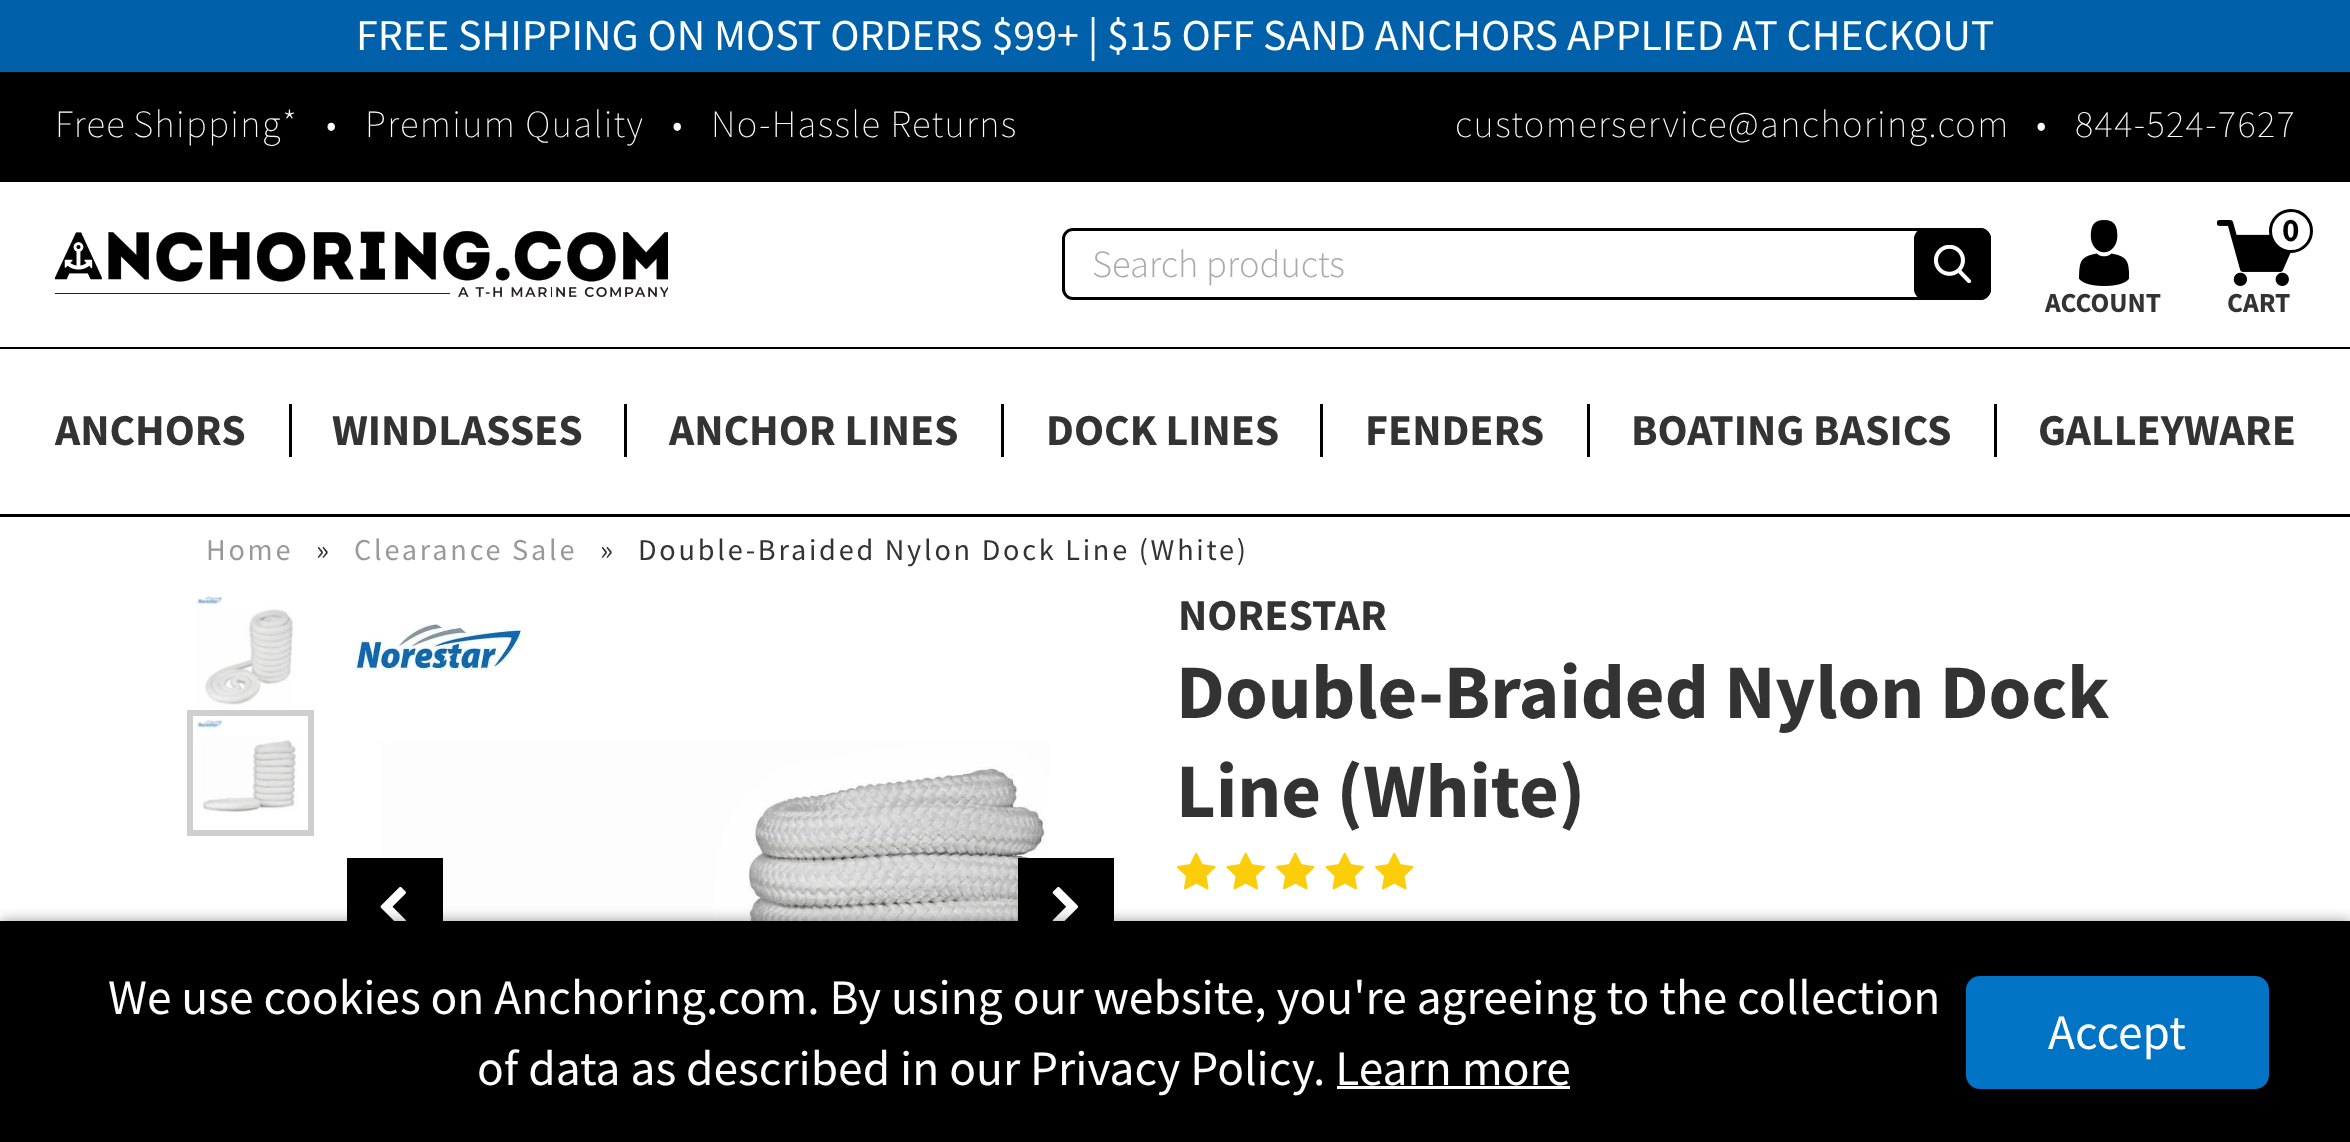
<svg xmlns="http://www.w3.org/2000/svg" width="2350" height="1142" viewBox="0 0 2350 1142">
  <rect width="100%" height="100%" fill="rgb(255,255,255)"/>
  <rect x="0" y="0" width="2350" height="72" fill="rgb(0,97,170)"/>
  <text x="356" y="50" font-family="Source Sans Pro" font-size="44" fill="rgb(255,255,255)">FREE SHIPPING ON MOST ORDERS $99+ | $15 OFF SAND ANCHORS APPLIED AT CHECKOUT</text>
  <rect x="0" y="72" width="2350" height="110" fill="rgb(0,0,0)"/>
  <g font-family="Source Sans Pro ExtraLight" font-size="38.5" font-weight="200" letter-spacing="1.4" fill="rgb(255,255,255)">
    <text x="55" y="137" word-spacing="-2">Free Shipping</text>
    <text x="282" y="137">*</text>
    <text x="326" y="137">•</text>
    <text x="365" y="137">Premium Quality</text>
    <text x="672" y="137">•</text>
    <text x="711" y="137">No-Hassle Returns</text>
    <text x="1455" y="137">customerservice@anchoring.com</text>
    <text x="2036" y="137">•</text>
    <text x="2075" y="137">844-524-7627</text>
  </g>
  <image x="55" y="231" width="613" height="66" href="pic1.png"/>
  <rect x="1063.5" y="229.5" width="926" height="69" rx="9.5" fill="none" stroke="rgb(0,0,0)" stroke-width="3"/>
  <text x="1092" y="277" font-family="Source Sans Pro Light" font-size="38.5" font-weight="300" fill="rgb(170,170,170)">Search products</text>
  <rect x="1914" y="228" width="77" height="72" rx="11" fill="rgb(0,0,0)"/>
  <image x="1933" y="245" width="39" height="38" href="pic2.png"/>
  <image x="2217" y="220" width="74" height="66" href="pic3.png"/>
  <circle cx="2291" cy="231" r="20.5" fill="rgb(255,255,255)" stroke="rgb(0,0,0)" stroke-width="3"/>
  <text x="2282" y="241" font-family="Source Sans Pro" font-size="33" font-weight="bold" fill="rgb(0,0,0)">0</text>
  <text x="2227" y="312" font-family="Source Sans Pro" font-size="27.5" font-weight="bold" fill="rgb(51,51,51)">CART</text>
  <image x="2079" y="220" width="50" height="66" href="pic4.png"/>
  <text x="2045" y="312" font-family="Source Sans Pro" font-size="27.5" font-weight="bold" fill="rgb(51,51,51)">ACCOUNT</text>
  <rect x="0" y="347" width="2350" height="2" fill="rgb(0,0,0)"/>
  <rect x="0" y="514" width="2350" height="3" fill="rgb(0,0,0)"/>
  <text x="55" y="445" font-family="Source Sans Pro" font-size="44" font-weight="bold" fill="rgb(51,51,51)">ANCHORS</text>
  <rect x="289" y="404" width="3" height="53" fill="rgb(0,0,0)"/>
  <text x="332" y="445" font-family="Source Sans Pro" font-size="44" font-weight="bold" fill="rgb(51,51,51)">WINDLASSES</text>
  <rect x="624" y="404" width="3" height="53" fill="rgb(0,0,0)"/>
  <text x="669" y="445" font-family="Source Sans Pro" font-size="44" font-weight="bold" fill="rgb(51,51,51)">ANCHOR LINES</text>
  <rect x="1001" y="404" width="3" height="53" fill="rgb(0,0,0)"/>
  <text x="1046" y="445" font-family="Source Sans Pro" font-size="44" font-weight="bold" fill="rgb(51,51,51)">DOCK LINES</text>
  <rect x="1320" y="404" width="3" height="53" fill="rgb(0,0,0)"/>
  <text x="1365" y="445" font-family="Source Sans Pro" font-size="44" font-weight="bold" fill="rgb(51,51,51)">FENDERS</text>
  <rect x="1587" y="404" width="3" height="53" fill="rgb(0,0,0)"/>
  <text x="1631" y="445" font-family="Source Sans Pro" font-size="44" font-weight="bold" fill="rgb(51,51,51)">BOATING BASICS</text>
  <rect x="1994" y="404" width="3" height="53" fill="rgb(0,0,0)"/>
  <text x="2038" y="445" font-family="Source Sans Pro" font-size="44" font-weight="bold" fill="rgb(51,51,51)">GALLEYWARE</text>
  <text x="206" y="560" font-family="Source Sans Pro" font-size="30.25" letter-spacing="2.75" fill="rgb(153,153,153)">Home</text>
  <text x="316" y="560" font-family="Source Sans Pro" font-size="30.25" letter-spacing="2.75" fill="rgb(51,51,51)">»</text>
  <text x="354" y="560" font-family="Source Sans Pro" font-size="30.25" letter-spacing="2.75" fill="rgb(153,153,153)">Clearance Sale</text>
  <g font-family="Source Sans Pro" font-size="30.25" letter-spacing="2.75" fill="rgb(51,51,51)">
    <text x="600" y="560">»</text>
    <text x="638" y="560">Double-Braided Nylon Dock Line (White)</text>
  </g>
  <image x="197" y="595" width="96" height="110" href="pic5.png"/>
  <image x="197" y="719" width="100" height="94" href="pic6.png"/>
  <rect x="190" y="713" width="121" height="120" fill="none" stroke="rgb(207,207,207)" stroke-width="6"/>
  <image x="354" y="623" width="695" height="298" href="pic7.png"/>
  <rect x="347" y="858" width="96" height="63" fill="rgb(0,0,0)"/>
  <image x="380" y="886" width="26" height="35" href="pic8.png"/>
  <rect x="1018" y="858" width="96" height="63" fill="rgb(0,0,0)"/>
  <image x="1052" y="886" width="27" height="35" href="pic9.png"/>
  <text x="1178" y="630" font-family="Source Sans Pro" font-size="44" font-weight="bold" fill="rgb(51,51,51)">NORESTAR</text>
  <g font-family="Source Sans Pro" font-size="77" font-weight="bold" fill="rgb(51,51,51)">
    <text>
      <tspan x="1176" y="718">Double-Braided Nylon Dock</tspan>
      <tspan x="1176" y="817">Line (White)</tspan>
    </text>
  </g>
  <image x="1177" y="852" width="39" height="38" href="pic10.png"/>
  <image x="1226" y="852" width="39" height="38" href="pic11.png"/>
  <image x="1276" y="852" width="39" height="38" href="pic10.png"/>
  <image x="1325" y="852" width="39" height="38" href="pic11.png"/>
  <image x="1375" y="852" width="39" height="38" href="pic10.png"/>
  <rect x="0" y="921" width="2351" height="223" fill="rgba(0,0,0,0.4)" filter="blur(7px)"/>
  <rect x="0" y="921" width="2350" height="221" fill="rgb(0,0,0)"/>
  <g font-family="Source Sans Pro" font-size="49.5" fill="rgb(255,255,255)">
    <text x="108" y="1014">We use cookies on Anchoring.com. By using our website, you're agreeing to the collection</text>
    <text x="477" y="1085">of data as described in our Privacy Policy. Learn more</text>
  </g>
  <rect x="1337" y="1086" width="233" height="3" fill="rgb(255,255,255)"/>
  <rect x="1966" y="976" width="303" height="113" rx="14" fill="rgb(1,116,198)"/>
  <text x="2048" y="1049" font-family="Source Sans Pro" font-size="49.5" fill="rgb(255,255,255)">Accept</text>
</svg>
